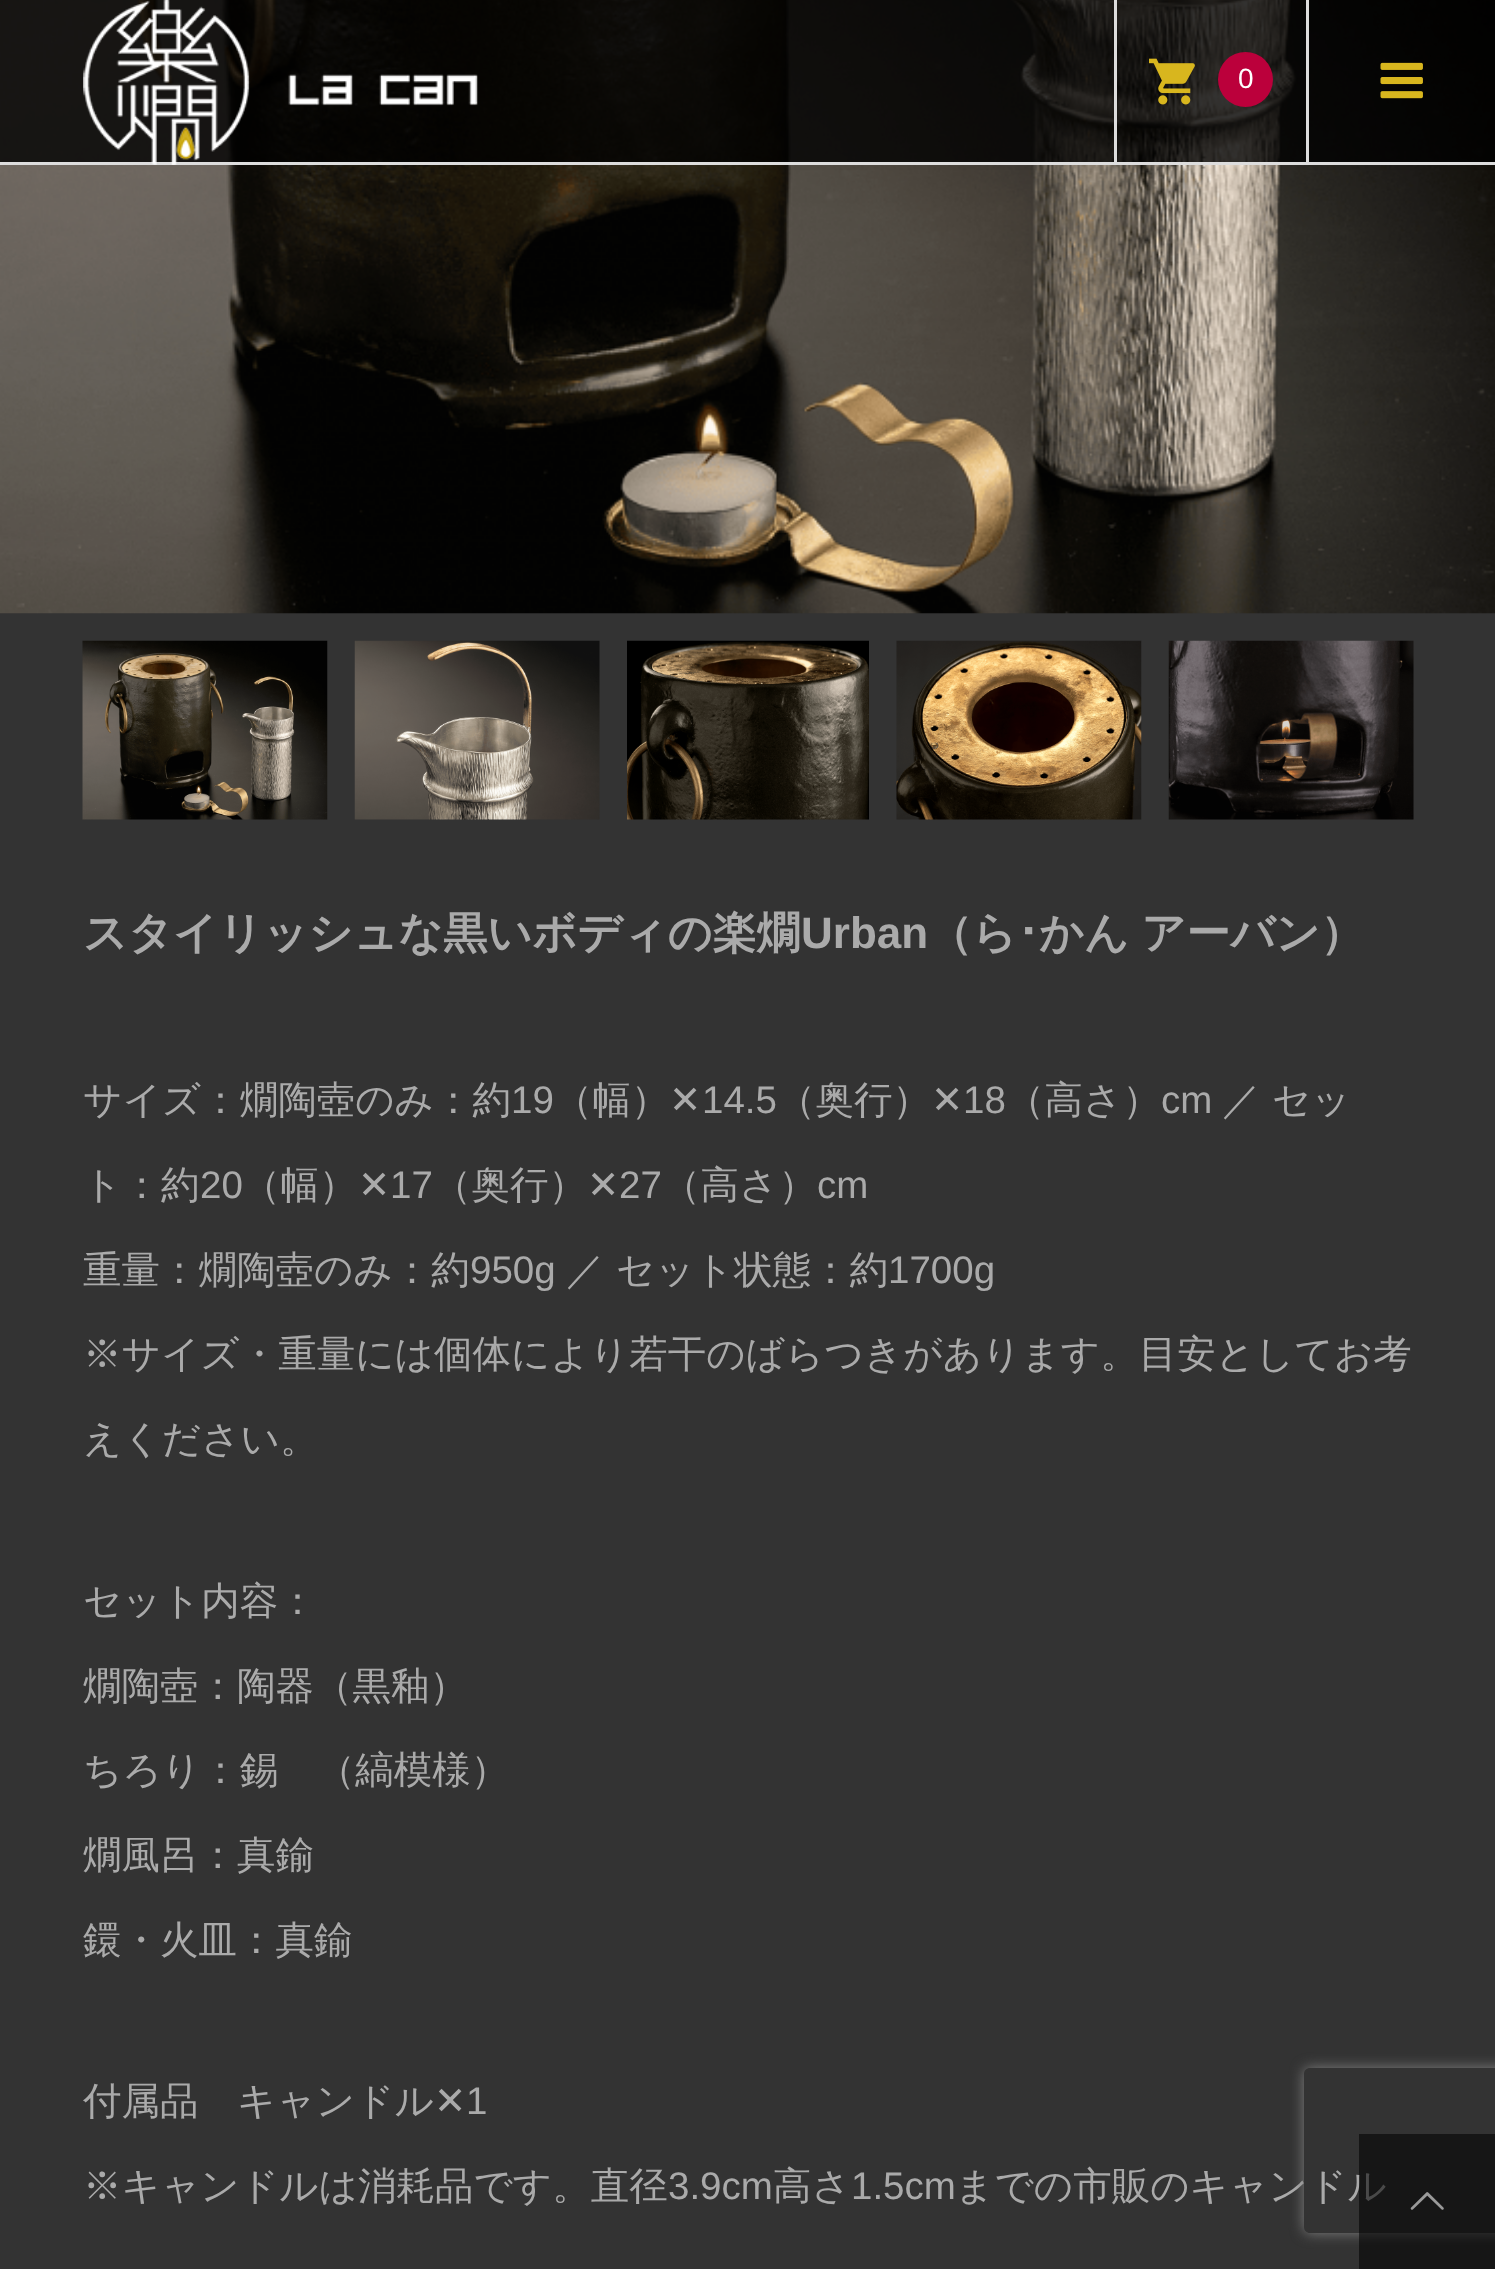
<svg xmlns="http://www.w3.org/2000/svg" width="1495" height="2269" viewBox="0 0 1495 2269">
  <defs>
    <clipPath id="clip1"><path d="M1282 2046H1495V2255H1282ZM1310 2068H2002C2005.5 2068 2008 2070.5 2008 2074V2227C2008 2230.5 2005.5 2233 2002 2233H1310C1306.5 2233 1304 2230.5 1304 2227V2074C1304 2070.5 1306.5 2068 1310 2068Z" clip-rule="evenodd"/></clipPath>
  </defs>
  <rect width="100%" height="100%" fill="rgb(51,51,51)"/>
  <image x="0" y="0" width="1495" height="614" href="pic4.png"/>
  <rect x="0" y="0" width="1495" height="162" fill="rgba(0,0,0,0.8)"/>
  <rect x="0" y="162" width="1495" height="3" fill="rgb(221,221,221)"/>
  <image x="83" y="0" width="395" height="165" href="pic1.png"/>
  <rect x="1114" y="0" width="3" height="162" fill="rgb(221,221,221)"/>
  <image x="1149" y="58" width="46" height="47" href="pic2.png"/>
  <circle cx="1245.5" cy="79.5" r="27.5" fill="rgb(187,0,59)"/>
  <text x="1238" y="88" font-family="Liberation Sans" font-size="28" fill="rgb(255,255,255)">0</text>
  <rect x="1306" y="0" width="3" height="162" fill="rgb(221,221,221)"/>
  <image x="1380" y="62" width="43" height="37" href="pic3.png"/>
  <image x="82" y="640" width="246" height="180" href="pic5.png"/>
  <image x="354" y="640" width="246" height="180" href="pic6.png"/>
  <image x="627" y="640" width="242" height="180" href="pic7.png"/>
  <image x="896" y="640" width="246" height="180" href="pic8.png"/>
  <image x="1168" y="640" width="246" height="180" href="pic9.png"/>
  <text x="83" y="948" font-family="WenQuanYi Zen Hei" font-size="44" font-weight="bold" fill="rgb(170,170,170)">スタイリッシュな黒いボディの楽燗</text>
  <text x="801" y="948" font-family="Liberation Sans" font-size="44" font-weight="bold" fill="rgb(170,170,170)">Urban</text>
  <text x="928" y="948" font-family="WenQuanYi Zen Hei" font-size="44" font-weight="bold" fill="rgb(170,170,170)">（ら</text>
  <text x="1017" y="948" font-family="IPAPGothic" font-size="44" font-weight="bold" fill="rgb(170,170,170)">･</text>
  <text x="1039" y="948" word-spacing="-1" font-family="WenQuanYi Zen Hei" font-size="44" font-weight="bold" fill="rgb(170,170,170)">かん アーバン）</text>
  <text x="83" y="1113" font-family="WenQuanYi Zen Hei" font-size="38.5" font-weight="500" fill="rgb(170,170,170)">サイズ：燗陶壺のみ：約</text>
  <text x="511" y="1113" font-family="Liberation Sans" font-size="38.5" fill="rgb(170,170,170)">19</text>
  <text x="554" y="1113" font-family="WenQuanYi Zen Hei" font-size="38.5" font-weight="500" fill="rgb(170,170,170)">（幅）</text>
  <text x="669" y="1113" font-family="DejaVu Sans" font-size="38.5" fill="rgb(170,170,170)">✕</text>
  <text x="702" y="1113" font-family="Liberation Sans" font-size="38.5" fill="rgb(170,170,170)">14.5</text>
  <text x="777" y="1113" font-family="WenQuanYi Zen Hei" font-size="38.5" font-weight="500" fill="rgb(170,170,170)">（奥行）</text>
  <text x="931" y="1113" font-family="DejaVu Sans" font-size="38.5" fill="rgb(170,170,170)">✕</text>
  <text x="963" y="1113" font-family="Liberation Sans" font-size="38.5" fill="rgb(170,170,170)">18</text>
  <text x="1006" y="1113" font-family="WenQuanYi Zen Hei" font-size="38.5" font-weight="500" fill="rgb(170,170,170)">（高さ）</text>
  <text x="1161" y="1113" font-family="Liberation Sans" font-size="38.5" fill="rgb(170,170,170)">cm</text>
  <g font-family="WenQuanYi Zen Hei" font-size="38.5" font-weight="500" fill="rgb(170,170,170)">
    <text x="1222" y="1113">／ セッ</text>
    <text x="83" y="1198">ト：約</text>
  </g>
  <text x="200" y="1198" font-family="Liberation Sans" font-size="38.5" fill="rgb(170,170,170)">20</text>
  <text x="242" y="1198" font-family="WenQuanYi Zen Hei" font-size="38.5" font-weight="500" fill="rgb(170,170,170)">（幅）</text>
  <text x="358" y="1198" font-family="DejaVu Sans" font-size="38.5" fill="rgb(170,170,170)">✕</text>
  <text x="390" y="1198" font-family="Liberation Sans" font-size="38.5" fill="rgb(170,170,170)">17</text>
  <text x="433" y="1198" font-family="WenQuanYi Zen Hei" font-size="38.5" font-weight="500" fill="rgb(170,170,170)">（奥行）</text>
  <text x="587" y="1198" font-family="DejaVu Sans" font-size="38.5" fill="rgb(170,170,170)">✕</text>
  <text x="619" y="1198" font-family="Liberation Sans" font-size="38.5" fill="rgb(170,170,170)">27</text>
  <text x="662" y="1198" font-family="WenQuanYi Zen Hei" font-size="38.5" font-weight="500" fill="rgb(170,170,170)">（高さ）</text>
  <text x="817" y="1198" font-family="Liberation Sans" font-size="38.5" fill="rgb(170,170,170)">cm</text>
  <text x="83" y="1283" font-family="WenQuanYi Zen Hei" font-size="38.5" font-weight="500" fill="rgb(170,170,170)">重量：燗陶壺のみ：約</text>
  <text x="470" y="1283" font-family="Liberation Sans" font-size="38.5" fill="rgb(170,170,170)">950g</text>
  <text x="566" y="1283" font-family="WenQuanYi Zen Hei" font-size="38.5" font-weight="500" fill="rgb(170,170,170)">／ セット状態：約</text>
  <text x="888" y="1283" font-family="Liberation Sans" font-size="38.5" fill="rgb(170,170,170)">1700g</text>
  <g font-family="WenQuanYi Zen Hei" font-size="38.5" font-weight="500" fill="rgb(170,170,170)">
    <text x="83" y="1367">※サイズ・重量には個体により若干のばらつきがあります。目安としてお考</text>
    <text x="83" y="1452">えください。</text>
    <text x="83" y="1614">セット内容：</text>
    <text x="83" y="1699">燗陶壺：陶器（黒釉）</text>
    <text x="83" y="1783">ちろり：錫　（縞模様）</text>
    <text x="83" y="1868">燗風呂：真鍮</text>
    <text x="83" y="1953">鐶・火皿：真鍮</text>
    <text x="83" y="2114">付属品　キャンドル</text>
  </g>
  <text x="434" y="2114" font-family="DejaVu Sans" font-size="38.5" fill="rgb(170,170,170)">✕</text>
  <text x="466" y="2114" font-family="Liberation Sans" font-size="38.5" fill="rgb(170,170,170)">1</text>
  <text x="83" y="2199" font-family="WenQuanYi Zen Hei" font-size="38.5" font-weight="500" fill="rgb(170,170,170)">※キャンドルは消耗品です。直径</text>
  <text x="668" y="2199" font-family="Liberation Sans" font-size="38.5" fill="rgb(170,170,170)">3.9cm</text>
  <text x="773" y="2199" font-family="WenQuanYi Zen Hei" font-size="38.5" font-weight="500" fill="rgb(170,170,170)">高さ</text>
  <text x="851" y="2199" font-family="Liberation Sans" font-size="38.5" fill="rgb(170,170,170)">1.5cm</text>
  <text x="955" y="2199" font-family="WenQuanYi Zen Hei" font-size="38.5" font-weight="500" fill="rgb(170,170,170)">までの市販のキャンドル</text>
  <g clip-path="url(#clip1)">
    <rect x="1304" y="2068" width="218" height="165" rx="6" fill="rgb(128,128,128)" filter="blur(7px)"/>
  </g>
  <rect x="1359" y="2134" width="136" height="135" fill="rgba(0,0,0,0.57)"/>
  <image x="1410" y="2192" width="34" height="18" href="pic10.png"/>
</svg>
